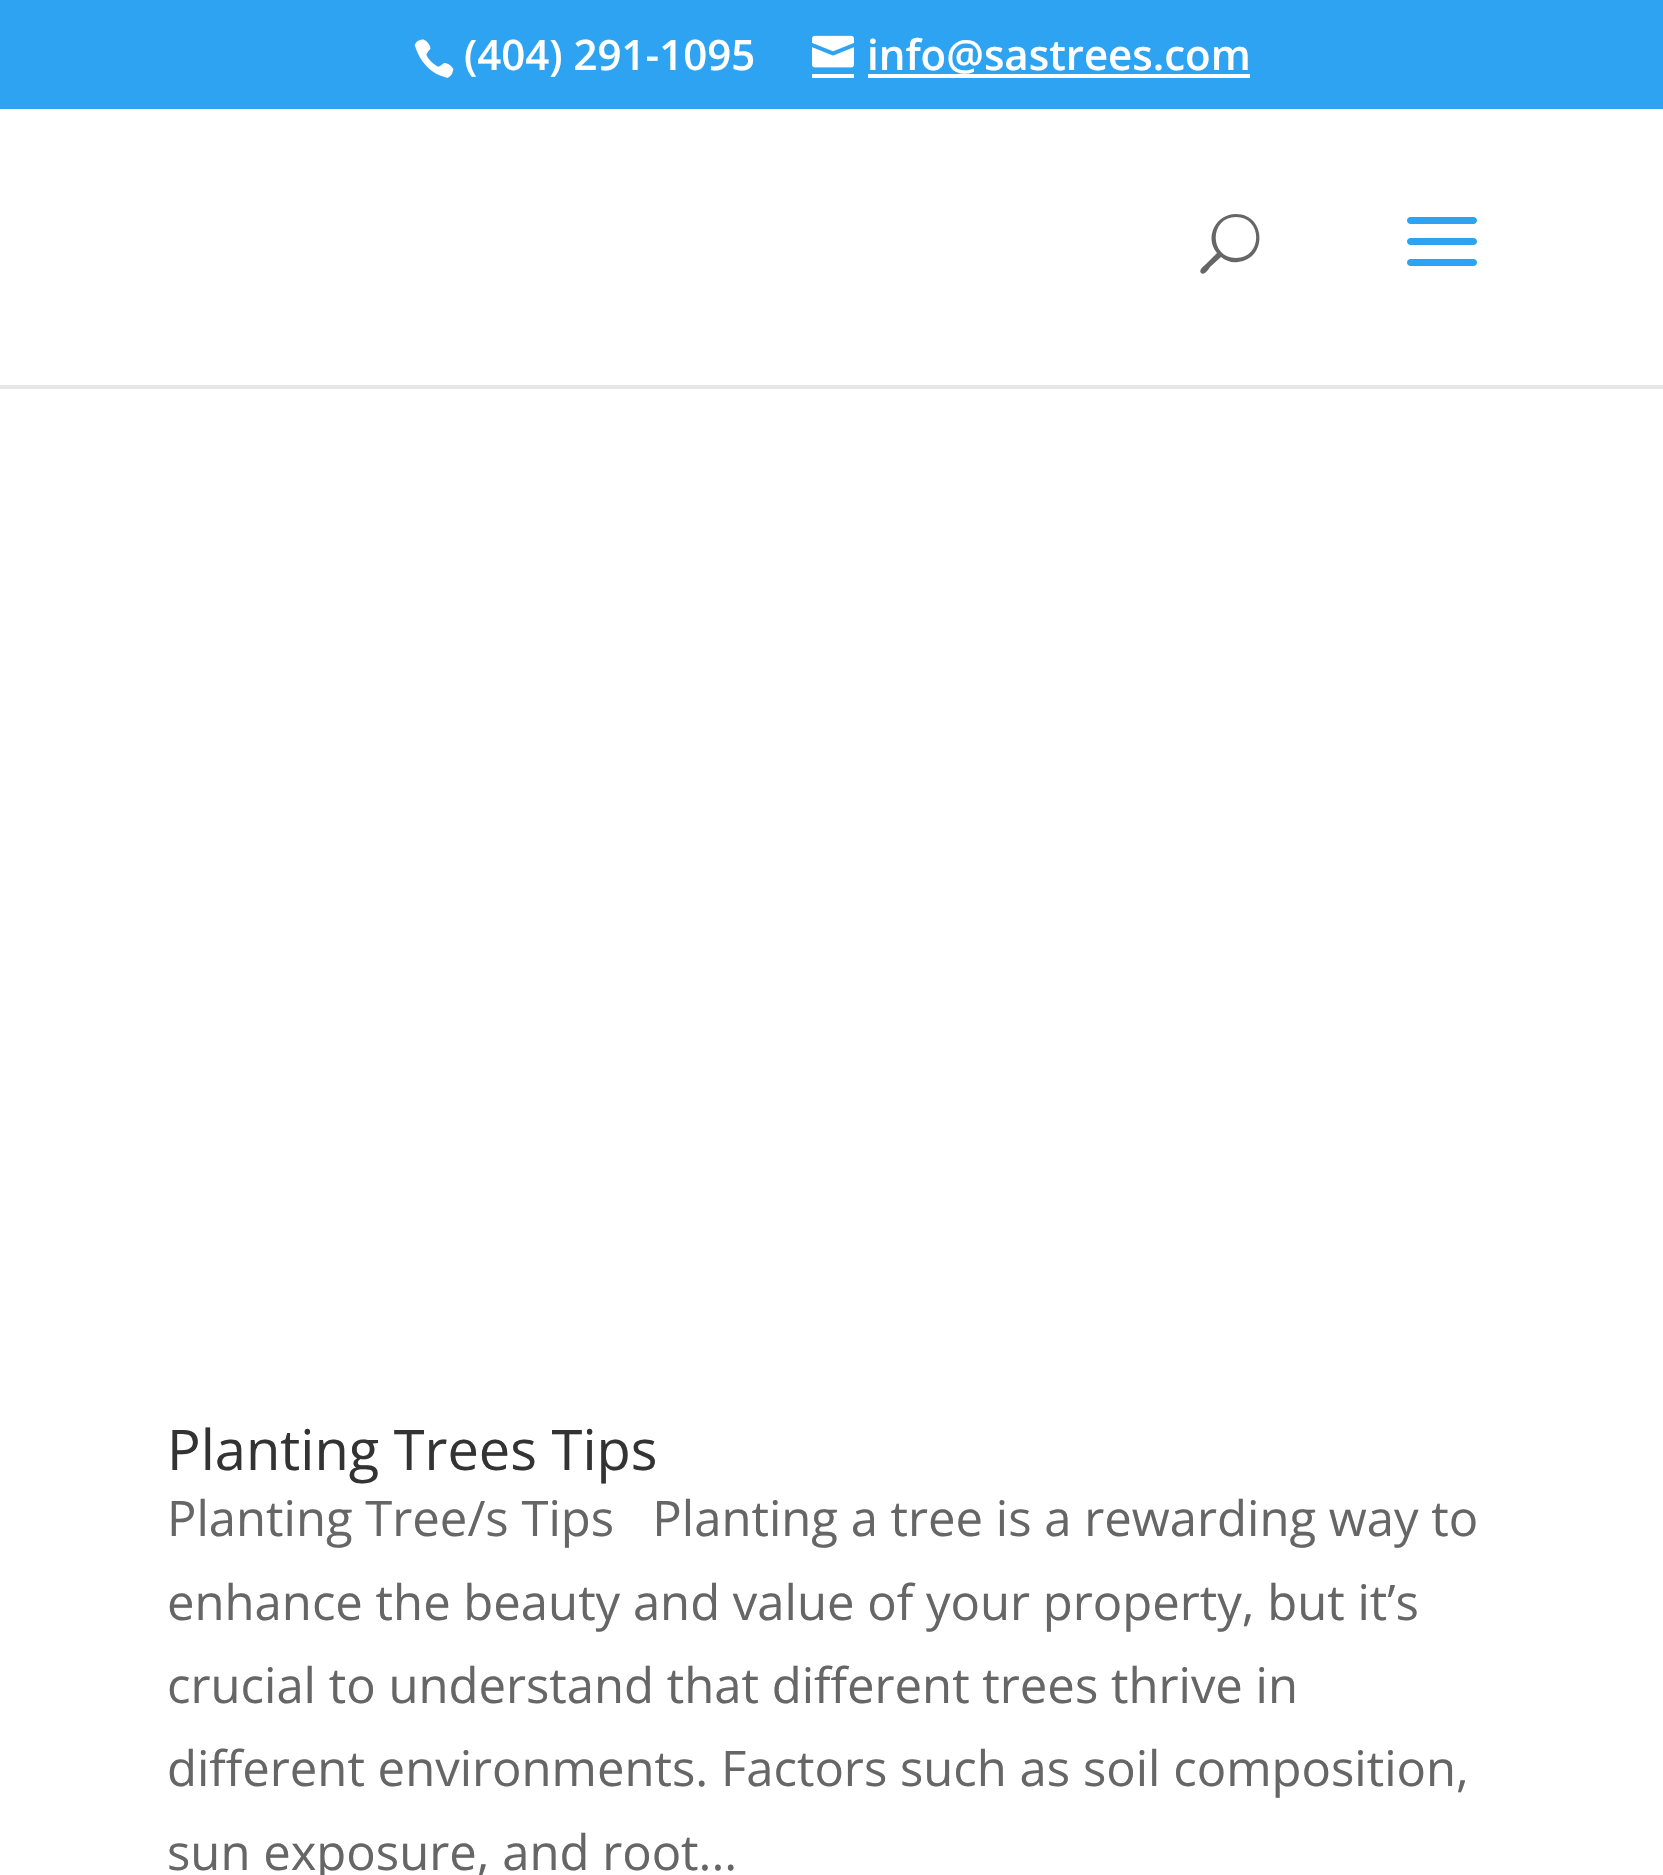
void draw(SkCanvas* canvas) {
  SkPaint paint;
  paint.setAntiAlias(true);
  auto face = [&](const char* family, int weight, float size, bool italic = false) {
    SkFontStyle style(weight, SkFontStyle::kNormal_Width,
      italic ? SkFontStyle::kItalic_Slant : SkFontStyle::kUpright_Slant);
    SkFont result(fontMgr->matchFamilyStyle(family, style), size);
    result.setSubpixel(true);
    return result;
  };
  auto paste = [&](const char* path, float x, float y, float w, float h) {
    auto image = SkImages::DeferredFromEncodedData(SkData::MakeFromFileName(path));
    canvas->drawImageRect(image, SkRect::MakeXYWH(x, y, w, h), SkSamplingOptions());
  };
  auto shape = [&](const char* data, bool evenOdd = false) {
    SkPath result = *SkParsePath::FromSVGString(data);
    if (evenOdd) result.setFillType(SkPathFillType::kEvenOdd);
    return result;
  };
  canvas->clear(0xffffffff);
  paint.setColor(0xff2ea3f2);
  canvas->drawRect(SkRect::MakeXYWH(0, 0, 1663, 109), paint);
  paste("img/1.png", 414, 39, 40, 39);
  paste("img/2.png", 812, 35, 42, 33);
  {
    const struct { float x, y, w, h; SkColor color; } items[] = {
      {812, 74, 42, 4, 0xffffffff},
      {868, 74, 382, 4, 0xffffffff},
      {0, 385, 1663, 4, 0xffe6e6e6},
    };
    for (auto [x, y, w, h, color] : items) {
      paint.setColor(color);
      canvas->drawRect(SkRect::MakeXYWH(x, y, w, h), paint);
    }
  }
  paint.setColor(0xff666666);
  canvas->drawPath(shape("M1236 214C1216 214 1204 237 1217 253L1206 264C1205 265 1198 270 1201 273C1204 276 1209 269 1210 267L1221 257C1226 261 1232 263 1238 262C1268 259 1266 214 1236 214ZM1236 258C1209 258 1209 217 1236 217C1263 217 1263 258 1236 258Z"), paint);
  paste("img/3.png", 1407, 217, 70, 49);
  auto f0 = face("Open Sans", 600, 42);
  paint.setColor(0xffffffff);
  canvas->drawString("(404) 291-1095", 464, 70, f0, paint);
  canvas->drawString("info@sastrees.com", 867, 70, f0, paint);
  auto f1 = face("Open Sans", 400, 56);
  paint.setColor(0xff333333);
  canvas->drawString("Planting Trees Tips", 167, 1470, f1, paint);
  auto f2 = face("Open Sans", 400, 49);
  paint.setColor(0xff666666);
  {
    const struct { const char* s; float x, y; } items[] = {
      {"Planting Tree/s Tips   Planting a tree is a rewarding way to", 167, 1536},
      {"enhance the beauty and value of your property, but it’s", 167, 1620},
      {"crucial to understand that different trees thrive in", 167, 1703},
      {"different environments. Factors such as soil composition,", 167, 1786},
      {"sun exposure, and root...", 167, 1870},
    };
    for (auto [s, x, y] : items) {
      canvas->drawString(s, x, y, f2, paint);
    }
  }
}
